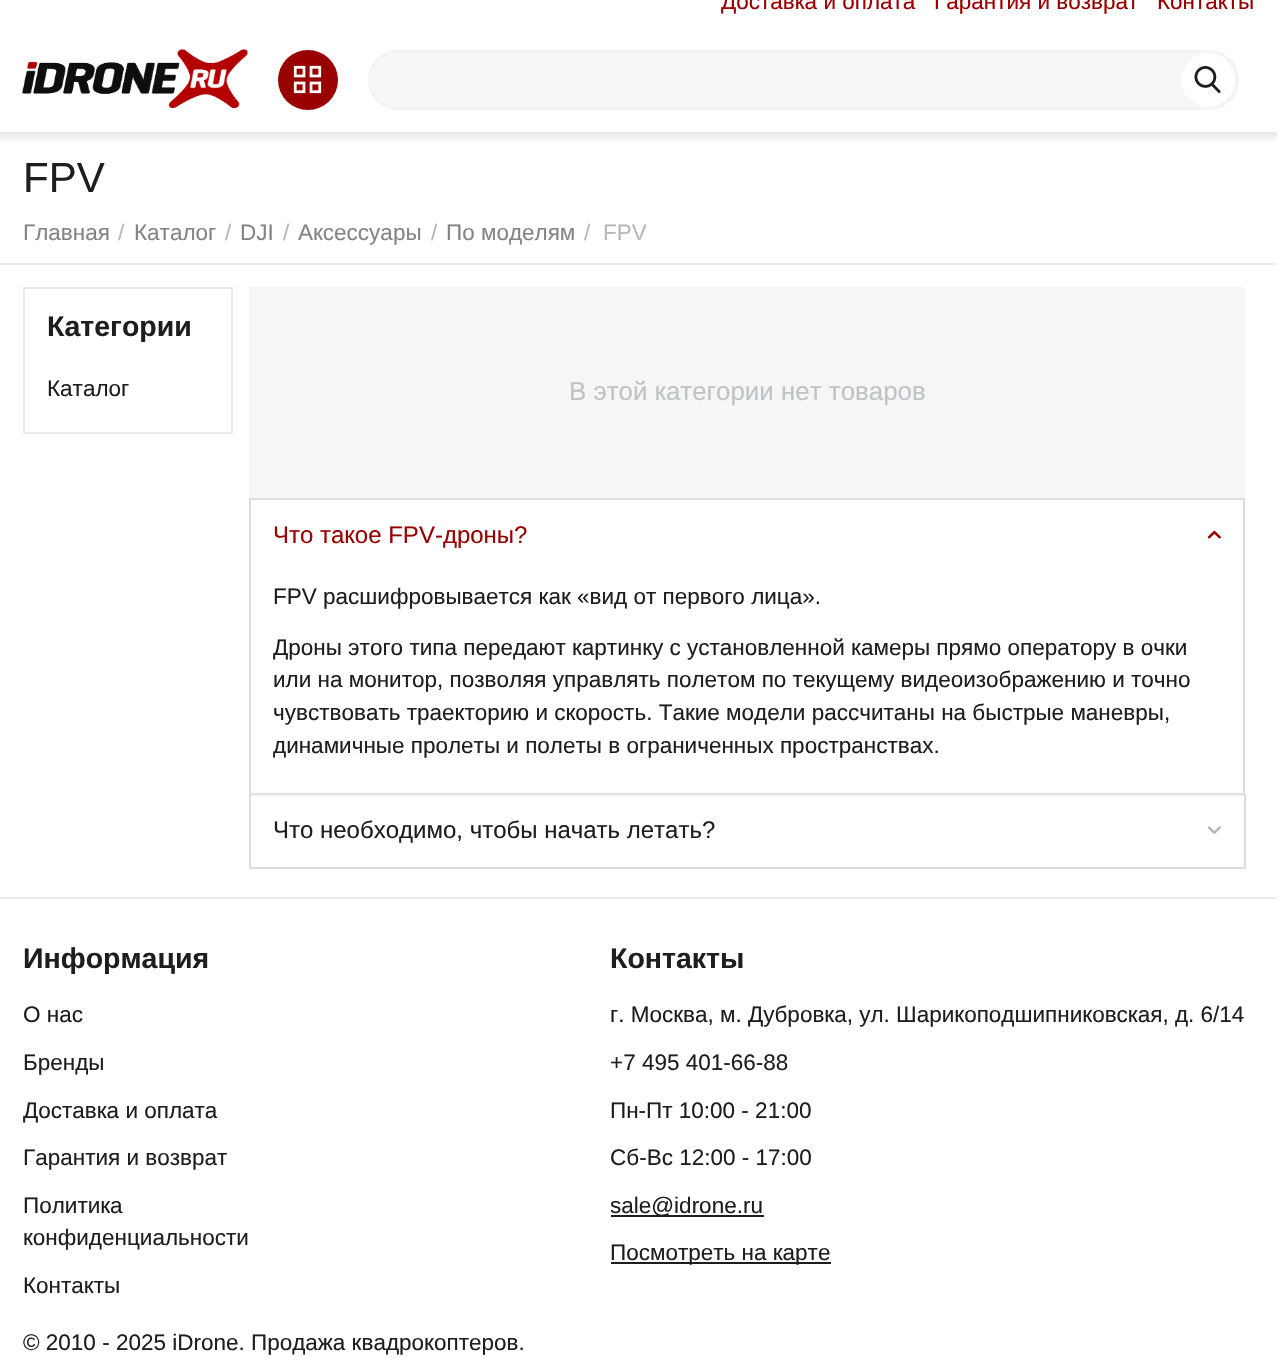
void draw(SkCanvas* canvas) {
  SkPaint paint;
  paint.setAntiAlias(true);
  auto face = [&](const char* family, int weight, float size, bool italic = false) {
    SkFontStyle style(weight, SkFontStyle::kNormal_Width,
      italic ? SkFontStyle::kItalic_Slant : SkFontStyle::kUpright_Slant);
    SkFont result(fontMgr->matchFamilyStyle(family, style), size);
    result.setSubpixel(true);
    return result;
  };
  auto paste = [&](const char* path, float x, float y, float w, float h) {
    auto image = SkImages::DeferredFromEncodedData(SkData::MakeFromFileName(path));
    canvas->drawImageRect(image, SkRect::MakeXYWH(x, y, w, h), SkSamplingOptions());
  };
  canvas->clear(0xffffffff);
  paste("img/1.png", 22, 49, 226, 59);
  paint.setColor(0xff990000);
  canvas->drawCircle(308, 80, 30, paint);
  paste("img/2.png", 293, 65, 29, 29);
  paint.setColor(0xfff6f6f6);
  canvas->drawRoundRect(SkRect::MakeXYWH(369, 51, 869, 58), 29, 29, paint);
  paint.setStroke(true);
  paint.setStrokeWidth(2);
  paint.setColor(0xfff3f3f3);
  canvas->drawRoundRect(SkRect::MakeXYWH(369, 51, 869, 58), 29, 29, paint);
  paint.setStroke(false);
  paint.setColor(0xffffffff);
  canvas->drawCircle(1208, 80, 27, paint);
  paste("img/3.png", 1194, 66, 27, 27);
  {
    const SkColor colors[] = {0xffe6e6e6, 0xffffffff};
    const float stops[] = {0, 1};
    const SkPoint ends[] = {{638, 132}, {638, 143}};
    paint.setShader(SkGradientShader::MakeLinear(ends, colors, stops, 2, SkTileMode::kClamp));
    paint.setAlpha(255);
  }
  canvas->drawRect(SkRect::MakeXYWH(0, 132, 1277, 10), paint);
  paint.setShader(nullptr);
  paint.setColor(0xffeaeaea);
  canvas->drawRect(SkRect::MakeXYWH(0, 263, 1277, 2), paint);
  paint.setStroke(true);
  canvas->drawRect(SkRect::MakeXYWH(24, 288, 208, 145), paint);
  paint.setStroke(false);
  paint.setColor(0xfff6f6f6);
  canvas->drawRect(SkRect::MakeXYWH(249, 287, 996, 211), paint);
  paint.setStroke(true);
  paint.setColor(0xffdddddd);
  canvas->drawRect(SkRect::MakeXYWH(250, 499, 994, 295), paint);
  paste("img/4.png", 1207, 530, 14, 9);
  paint.setStroke(false);
  {
    const struct { float x, y, w, h; SkColor color; } items[] = {
      {249, 794, 996, 2, 0xffeaeaea},
      {1244, 794, 2, 75, 0xffdddddd},
      {249, 867, 996, 2, 0xffdddddd},
      {249, 794, 2, 75, 0xffdddddd},
    };
    for (auto [x, y, w, h, color] : items) {
      paint.setColor(color);
      canvas->drawRect(SkRect::MakeXYWH(x, y, w, h), paint);
    }
  }
  paste("img/5.png", 1207, 826, 14, 8);
  {
    const struct { float x, y, w, h; SkColor color; } items[] = {
      {0, 897, 1277, 2, 0xffeaeaea},
      {611, 1215, 153, 2, 0xff1e1e1e},
      {611, 1262, 220, 2, 0xff1e1e1e},
    };
    for (auto [x, y, w, h, color] : items) {
      paint.setColor(color);
      canvas->drawRect(SkRect::MakeXYWH(x, y, w, h), paint);
    }
  }
  auto f0 = face("Liberation Sans", 400, 22.5f);
  paint.setColor(0xff990000);
  {
    const struct { const char* s; float x, y; } items[] = {
      {"Доставка и оплата", 721, 9},
      {"Гарантия и возврат", 934, 9},
      {"Контакты", 1157, 9},
    };
    for (auto [s, x, y] : items) {
      canvas->drawString(s, x, y, f0, paint);
    }
  }
  auto f1 = face("Liberation Sans", 400, 42);
  paint.setColor(0xff1e1e1e);
  canvas->drawString("FPV", 23, 192, f1, paint);
  paint.setColor(0xff848484);
  canvas->drawString("Главная", 23, 240, f0, paint);
  paint.setColor(0xffb7b7b7);
  canvas->drawString("/", 118, 240, f0, paint);
  paint.setColor(0xff848484);
  canvas->drawString("Каталог", 134, 240, f0, paint);
  paint.setColor(0xffb7b7b7);
  canvas->drawString("/", 225, 240, f0, paint);
  paint.setColor(0xff848484);
  canvas->drawString("DJI", 240, 240, f0, paint);
  paint.setColor(0xffb7b7b7);
  canvas->drawString("/", 283, 240, f0, paint);
  paint.setColor(0xff848484);
  canvas->drawString("Аксессуары", 298, 240, f0, paint);
  paint.setColor(0xffb7b7b7);
  canvas->drawString("/", 431, 240, f0, paint);
  paint.setColor(0xff848484);
  canvas->drawString("По моделям", 446, 240, f0, paint);
  paint.setColor(0xffb7b7b7);
  canvas->drawString("/", 584, 240, f0, paint);
  canvas->drawString("FPV", 603, 240, f0, paint);
  auto f2 = face("Liberation Sans", 700, 28.5f);
  paint.setColor(0xff1e1e1e);
  canvas->drawString("Категории", 47, 336, f2, paint);
  canvas->drawString("Каталог", 47, 396, f0, paint);
  auto f3 = face("Liberation Sans", 400, 25.9f);
  paint.setColor(0xffbdc3c7);
  canvas->drawString("В этой категории нет товаров", 569, 400, f3, paint);
  auto f4 = face("Liberation Sans", 400, 24);
  paint.setColor(0xff990000);
  canvas->drawString("Что такое FPV-дроны?", 273, 543, f4, paint);
  paint.setColor(0xff1e1e1e);
  {
    const struct { const char* s; float x, y; } items[] = {
      {"FPV расшифровывается как «вид от первого лица».", 273, 604},
      {"Дроны этого типа передают картинку с установленной камеры прямо оператору в очки", 273, 655},
      {"или на монитор, позволяя управлять полетом по текущему видеоизображению и точно", 273, 687},
      {"чувствовать траекторию и скорость. Такие модели рассчитаны на быстрые маневры,", 273, 720},
      {"динамичные пролеты и полеты в ограниченных пространствах.", 273, 753},
    };
    for (auto [s, x, y] : items) {
      canvas->drawString(s, x, y, f0, paint);
    }
  }
  canvas->drawString("Что необходимо, чтобы начать летать?", 273, 838, f4, paint);
  canvas->drawString("Информация", 23, 968, f2, paint);
  {
    const struct { const char* s; float x, y; } items[] = {
      {"О нас", 23, 1022},
      {"Бренды", 23, 1070},
      {"Доставка и оплата", 23, 1118},
      {"Гарантия и возврат", 23, 1165},
      {"Политика", 23, 1213},
      {"конфиденциальности", 23, 1245},
      {"Контакты", 23, 1293},
    };
    for (auto [s, x, y] : items) {
      canvas->drawString(s, x, y, f0, paint);
    }
  }
  canvas->drawString("Контакты", 610, 968, f2, paint);
  {
    const struct { const char* s; float x, y; } items[] = {
      {"г. Москва, м. Дубровка, ул. Шарикоподшипниковская, д. 6/14", 610, 1022},
      {"+7 495 401-66-88", 610, 1070},
      {"Пн-Пт 10:00 - 21:00", 610, 1118},
      {"Сб-Вс 12:00 - 17:00", 610, 1165},
      {"sale@idrone.ru", 610, 1213},
      {"Посмотреть на карте", 610, 1260},
      {"© 2010 - 2025 iDrone. Продажа квадрокоптеров.", 23, 1350},
    };
    for (auto [s, x, y] : items) {
      canvas->drawString(s, x, y, f0, paint);
    }
  }
}
